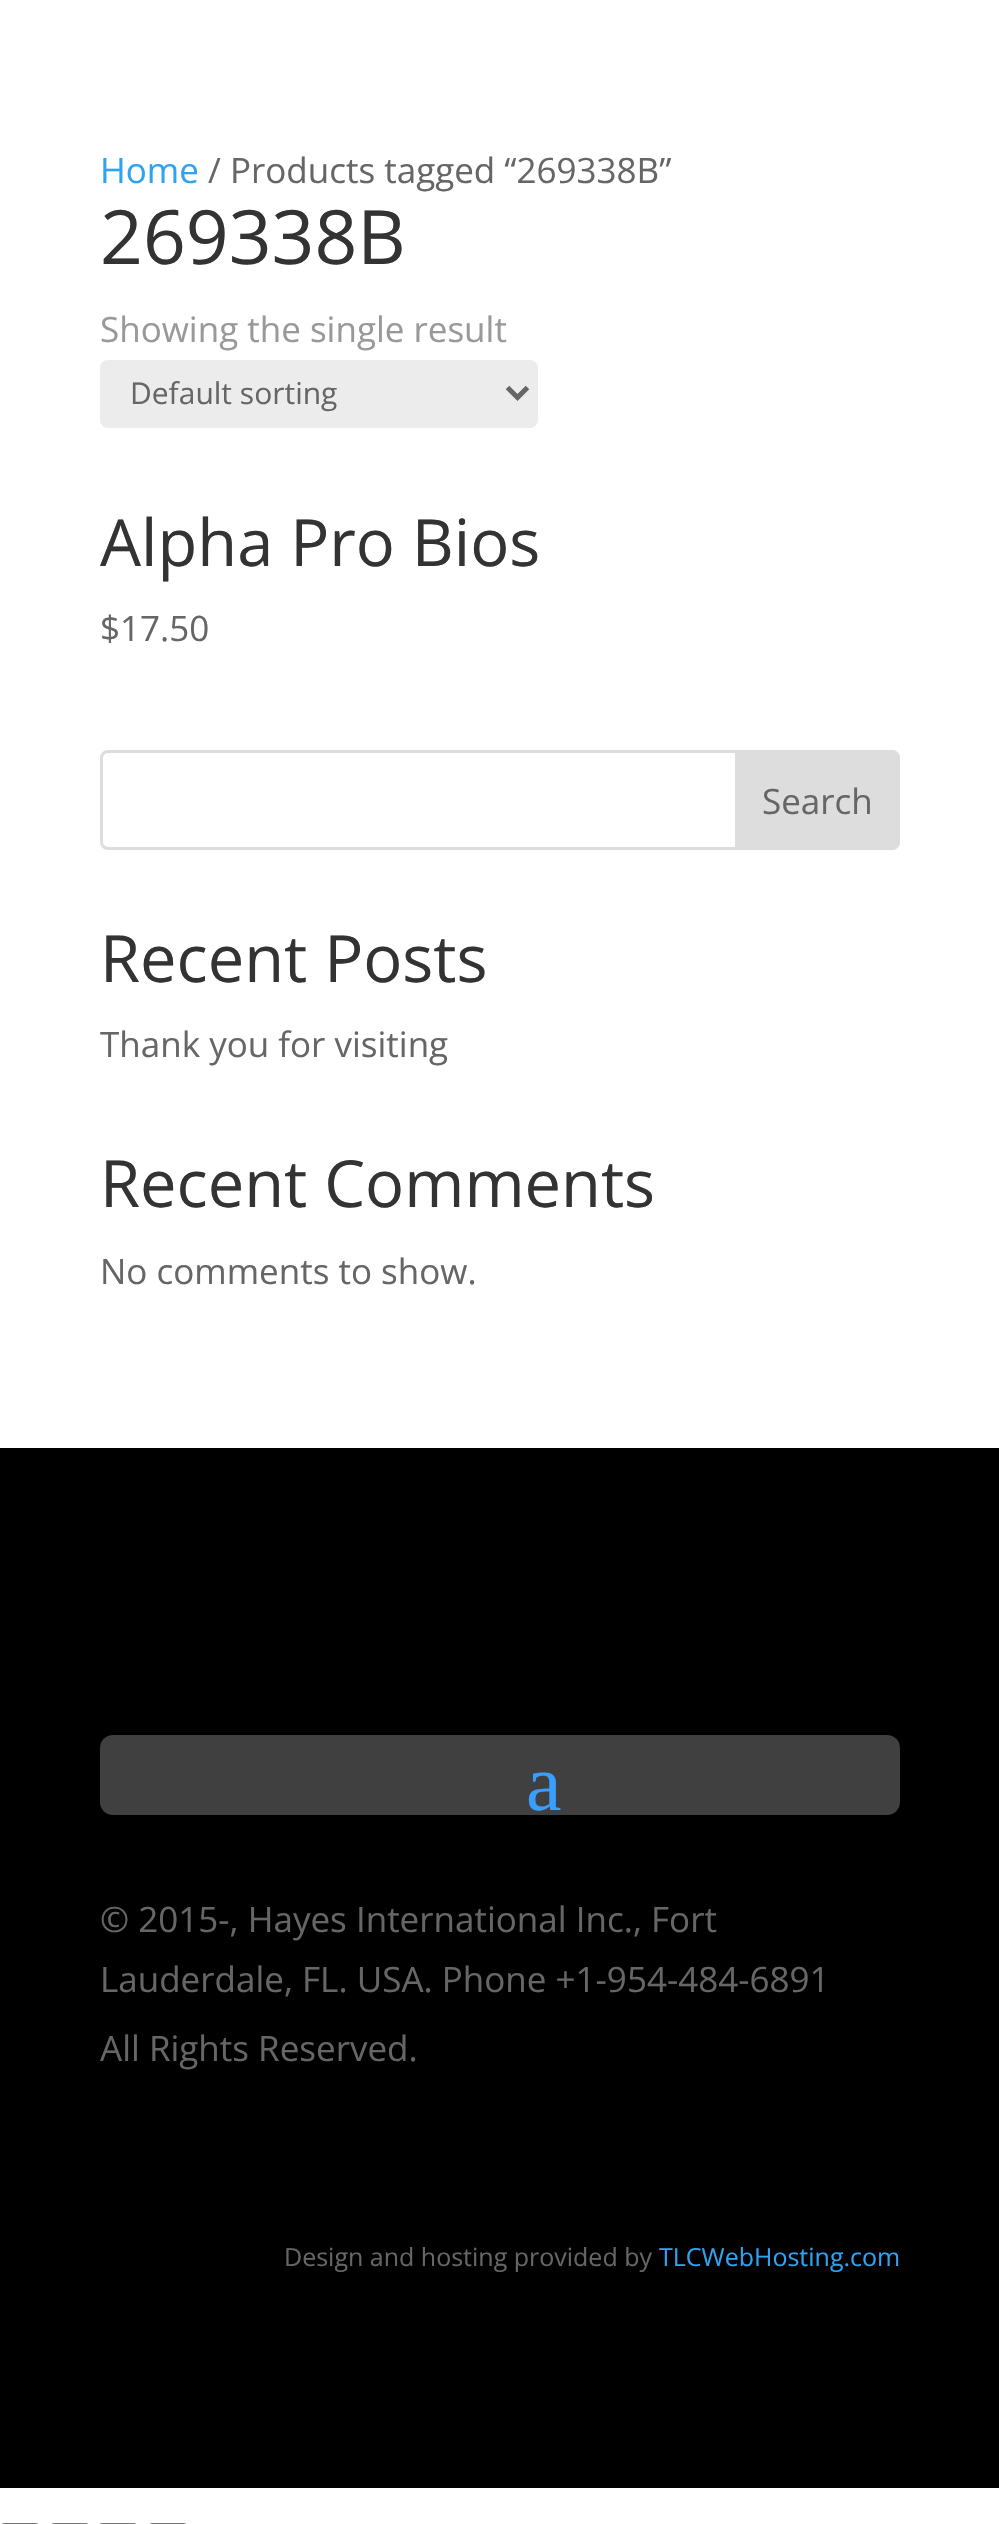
void draw(SkCanvas* canvas) {
  SkPaint paint;
  paint.setAntiAlias(true);
  auto face = [&](const char* family, int weight, float size, bool italic = false) {
    SkFontStyle style(weight, SkFontStyle::kNormal_Width,
      italic ? SkFontStyle::kItalic_Slant : SkFontStyle::kUpright_Slant);
    SkFont result(fontMgr->matchFamilyStyle(family, style), size);
    result.setSubpixel(true);
    return result;
  };
  auto shape = [&](const char* data, bool evenOdd = false) {
    SkPath result = *SkParsePath::FromSVGString(data);
    if (evenOdd) result.setFillType(SkPathFillType::kEvenOdd);
    return result;
  };
  canvas->clear(0xffffffff);
  paint.setColor(0xffececec);
  canvas->drawRoundRect(SkRect::MakeXYWH(100, 360, 438, 68), 8, 8, paint);
  paint.setStroke(true);
  paint.setStrokeWidth(5);
  paint.setColor(0xff666666);
  canvas->drawPath(shape("M507.5 387.5L517.5 397.5L527.5 387.5"), paint);
  paint.setStrokeWidth(3);
  paint.setColor(0xffdddddd);
  canvas->drawRoundRect(SkRect::MakeXYWH(101.5f, 751.5f, 797, 97), 6.5f, 6.5f, paint);
  paint.setStroke(false);
  canvas->drawPath(shape("M736.5 751.5H892C895.5 751.5 898.5 754.5 898.5 758V842C898.5 845.5 895.5 848.5 892 848.5H736.5Z"), paint);
  paint.setStroke(true);
  canvas->drawPath(shape("M736.5 751.5H892C895.5 751.5 898.5 754.5 898.5 758V842C898.5 845.5 895.5 848.5 892 848.5H736.5Z"), paint);
  paint.setStroke(false);
  paint.setColor(0xff000000);
  canvas->drawRect(SkRect::MakeXYWH(0, 1448, 999, 1040), paint);
  paint.setColor(0xff404040);
  canvas->drawRoundRect(SkRect::MakeXYWH(100, 1735, 800, 80), 13, 13, paint);
  paint.setStroke(true);
  paint.setColor(0xff767676);
  canvas->drawRoundRect(SkRect::MakeXYWH(1.5f, 2524.5f, 37, 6), 3.5f, 3.5f, paint);
  canvas->drawRoundRect(SkRect::MakeXYWH(51.5f, 2524.5f, 37, 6), 3.5f, 3.5f, paint);
  canvas->drawRoundRect(SkRect::MakeXYWH(99.5f, 2524.5f, 37, 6), 3.5f, 3.5f, paint);
  canvas->drawRoundRect(SkRect::MakeXYWH(149.5f, 2524.5f, 37, 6), 3.5f, 3.5f, paint);
  auto f0 = face("Open Sans", 400, 35);
  paint.setStroke(false);
  paint.setColor(0xff2ea3f2);
  canvas->drawString("Home", 100, 183, f0, paint);
  paint.setColor(0xff666666);
  canvas->drawString("/ Products tagged “269338B”", 208, 183, f0, paint);
  auto f1 = face("Open Sans", 400, 75);
  paint.setColor(0xff333333);
  canvas->drawString("269338B", 100, 264, f1, paint);
  paint.setColor(0xff999999);
  canvas->drawString("Showing the single result", 100, 342, f0, paint);
  auto f2 = face("Open Sans", 400, 30);
  paint.setColor(0xff666666);
  canvas->drawString("Default sorting", 130, 404, f2, paint);
  auto f3 = face("Open Sans", 400, 65);
  paint.setColor(0xff333333);
  canvas->drawString("Alpha Pro Bios", 100, 566, f3, paint);
  paint.setColor(0xff666666);
  canvas->drawString("$17.50", 100, 641, f0, paint);
  canvas->drawString("Search", 762, 814, f0, paint);
  paint.setColor(0xff333333);
  canvas->drawString("Recent Posts", 100, 982, f3, paint);
  paint.setColor(0xff666666);
  canvas->drawString("Thank you for visiting", 100, 1057, f0, paint);
  paint.setColor(0xff333333);
  canvas->drawString("Recent Comments", 100, 1207, f3, paint);
  paint.setColor(0xff666666);
  canvas->drawString("No comments to show.", 100, 1284, f0, paint);
  auto f4 = face("Liberation Serif", 400, 80);
  paint.setColor(0xff389fff);
  canvas->drawString("a", 526, 1810, f4, paint);
  paint.setColor(0xff666666);
  {
    const struct { const char* s; float x, y; } items[] = {
      {"© 2015-, Hayes International Inc., Fort", 100, 1932},
      {"Lauderdale, FL. USA. Phone +1-954-484-6891", 100, 1992},
      {"All Rights Reserved.", 100, 2061},
    };
    for (auto [s, x, y] : items) {
      canvas->drawString(s, x, y, f0, paint);
    }
  }
  auto f5 = face("Open Sans", 400, 25);
  canvas->drawString("Design and hosting provided by", 284, 2266, f5, paint);
  paint.setColor(0xff2ea3f2);
  canvas->drawString("TLCWebHosting.com", 659, 2266, f5, paint);
}
